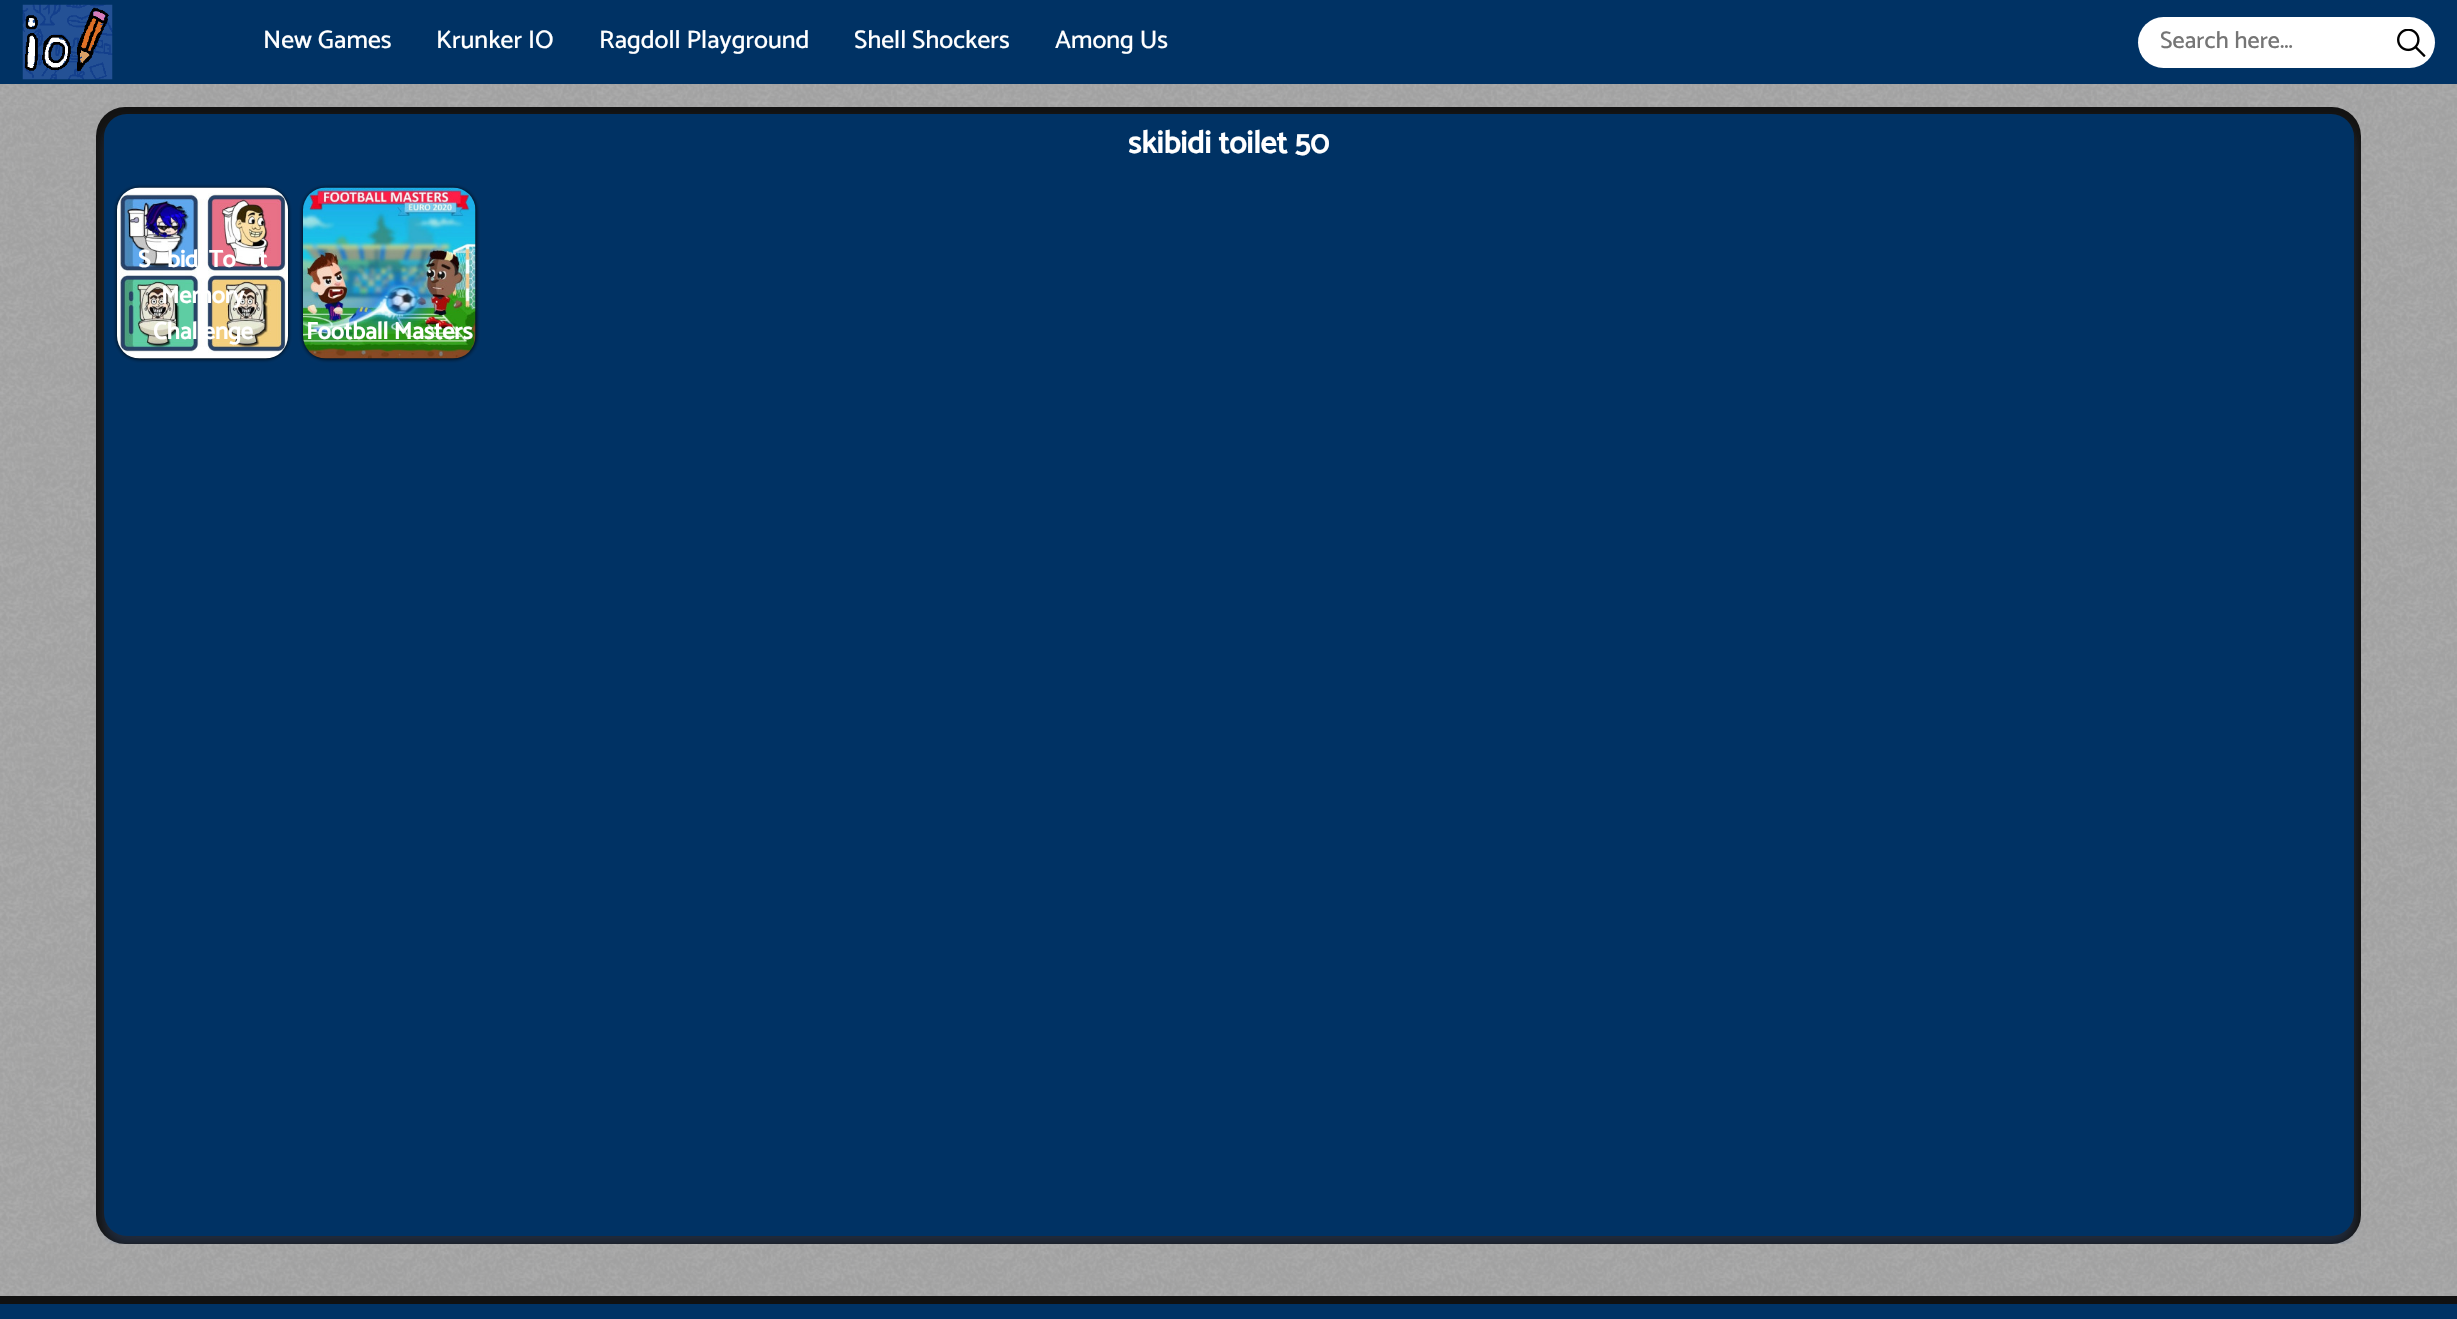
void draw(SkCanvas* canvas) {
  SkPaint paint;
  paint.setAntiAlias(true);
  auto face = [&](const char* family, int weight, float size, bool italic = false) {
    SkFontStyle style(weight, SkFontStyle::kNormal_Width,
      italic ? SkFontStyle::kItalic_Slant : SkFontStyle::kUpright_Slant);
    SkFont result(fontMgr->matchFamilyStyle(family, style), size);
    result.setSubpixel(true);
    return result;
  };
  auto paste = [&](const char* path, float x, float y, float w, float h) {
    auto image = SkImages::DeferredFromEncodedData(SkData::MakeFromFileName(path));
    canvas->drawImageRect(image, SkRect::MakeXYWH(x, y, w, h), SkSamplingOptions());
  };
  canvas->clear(0xff808080);
  paste("img/1.png", 0, 84, 2457, 1212);
  paint.setColor(0xff003264);
  canvas->drawRect(SkRect::MakeXYWH(0, 0, 2457, 84), paint);
  paste("img/2.png", 22, 4, 91, 76);
  paint.setColor(0xffffffff);
  canvas->drawRoundRect(SkRect::MakeXYWH(2138, 17, 297, 51), 25.5f, 25.5f, paint);
  paste("img/3.png", 2397, 29, 29, 28);
  paint.setColor(0xff111111);
  canvas->drawRoundRect(SkRect::MakeXYWH(96, 107, 2265, 1137), 29, 29, paint);
  canvas->save();
  canvas->clipRect(SkRect::MakeXYWH(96, 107, 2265, 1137));
  paint.setColor(0x0fffffff);
  paint.setMaskFilter(SkMaskFilter::MakeBlur(kNormal_SkBlurStyle, 7));
  canvas->drawRoundRect(SkRect::MakeXYWH(104, 123, 2250, 1122), 23, 23, paint);
  paint.setMaskFilter(nullptr);
  paint.setColor(0x42224b8c);
  paint.setMaskFilter(SkMaskFilter::MakeBlur(kNormal_SkBlurStyle, 5));
  canvas->drawRoundRect(SkRect::MakeXYWH(104, 123, 2250, 1122), 23, 23, paint);
  paint.setMaskFilter(nullptr);
  canvas->restore();
  paint.setColor(0xff003264);
  canvas->drawRoundRect(SkRect::MakeXYWH(104, 114, 2250, 1122), 23, 23, paint);
  paint.setColor(0xff020202);
  paint.setMaskFilter(SkMaskFilter::MakeBlur(kNormal_SkBlurStyle, 2));
  canvas->drawRoundRect(SkRect::MakeXYWH(117, 188, 171, 171), 23, 23, paint);
  paint.setMaskFilter(nullptr);
  paste("img/4.png", 117, 187, 171, 172);
  paint.setMaskFilter(SkMaskFilter::MakeBlur(kNormal_SkBlurStyle, 2));
  canvas->drawRoundRect(SkRect::MakeXYWH(303, 188, 173, 171), 23, 23, paint);
  paint.setMaskFilter(nullptr);
  paste("img/5.png", 303, 187, 173, 172);
  paint.setColor(0xff003264);
  canvas->drawRect(SkRect::MakeXYWH(0, 1304, 2457, 15), paint);
  paint.setColor(0xff111111);
  canvas->drawRect(SkRect::MakeXYWH(0, 1296, 2457, 8), paint);
  auto f0 = face("Catamaran", 100, 25.5f);
  paint.setColor(0xffffffff);
  {
    const struct { const char* s; float x, y; } items[] = {
      {"New Games", 263, 48},
      {"Krunker IO", 436, 48},
      {"Ragdoll Playground", 599, 48},
      {"Shell Shockers", 854, 48},
      {"Among Us", 1055, 48},
    };
    for (auto [s, x, y] : items) {
      canvas->drawString(s, x, y, f0, paint);
    }
  }
  auto f1 = face("Catamaran", 100, 24);
  paint.setColor(0xff757575);
  canvas->drawString("Search here...", 2160, 48, f1, paint);
  auto f2 = face("Catamaran", 700, 31.5f);
  paint.setColor(0xffffffff);
  canvas->drawString("skibidi toilet 50", 1128, 153, f2, paint);
  auto f3 = face("Catamaran", 700, 24);
  {
    const struct { const char* s; float x, y; } items[] = {
      {"S", 138, 267},
      {"bidi To", 167, 267},
      {"t", 259, 267},
      {"Memory", 161, 303},
      {"Challenge", 153, 339},
      {"Football Masters", 306, 339},
    };
    for (auto [s, x, y] : items) {
      canvas->drawString(s, x, y, f3, paint);
    }
  }
}
